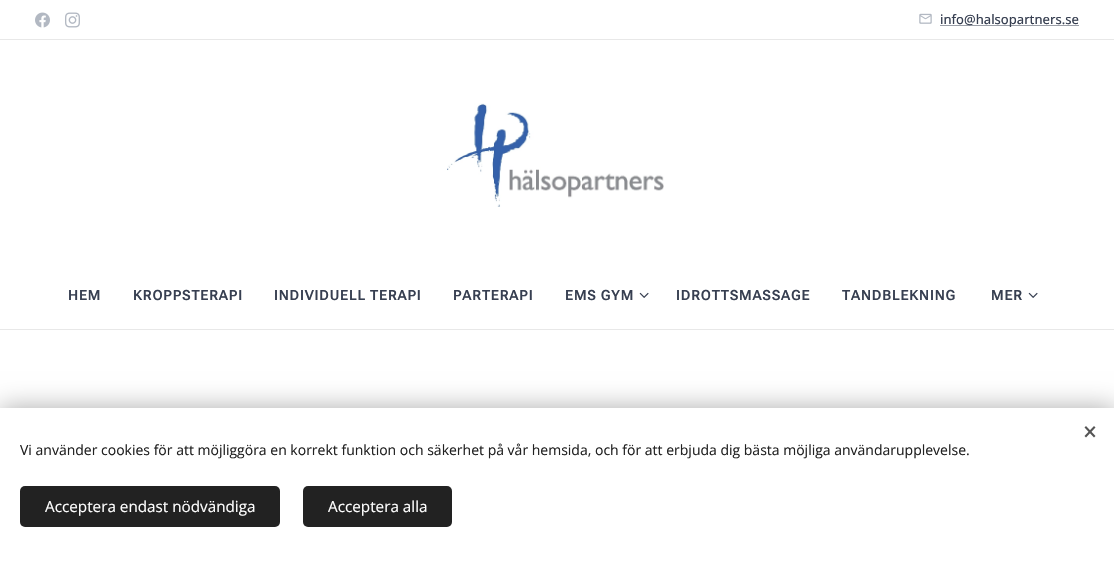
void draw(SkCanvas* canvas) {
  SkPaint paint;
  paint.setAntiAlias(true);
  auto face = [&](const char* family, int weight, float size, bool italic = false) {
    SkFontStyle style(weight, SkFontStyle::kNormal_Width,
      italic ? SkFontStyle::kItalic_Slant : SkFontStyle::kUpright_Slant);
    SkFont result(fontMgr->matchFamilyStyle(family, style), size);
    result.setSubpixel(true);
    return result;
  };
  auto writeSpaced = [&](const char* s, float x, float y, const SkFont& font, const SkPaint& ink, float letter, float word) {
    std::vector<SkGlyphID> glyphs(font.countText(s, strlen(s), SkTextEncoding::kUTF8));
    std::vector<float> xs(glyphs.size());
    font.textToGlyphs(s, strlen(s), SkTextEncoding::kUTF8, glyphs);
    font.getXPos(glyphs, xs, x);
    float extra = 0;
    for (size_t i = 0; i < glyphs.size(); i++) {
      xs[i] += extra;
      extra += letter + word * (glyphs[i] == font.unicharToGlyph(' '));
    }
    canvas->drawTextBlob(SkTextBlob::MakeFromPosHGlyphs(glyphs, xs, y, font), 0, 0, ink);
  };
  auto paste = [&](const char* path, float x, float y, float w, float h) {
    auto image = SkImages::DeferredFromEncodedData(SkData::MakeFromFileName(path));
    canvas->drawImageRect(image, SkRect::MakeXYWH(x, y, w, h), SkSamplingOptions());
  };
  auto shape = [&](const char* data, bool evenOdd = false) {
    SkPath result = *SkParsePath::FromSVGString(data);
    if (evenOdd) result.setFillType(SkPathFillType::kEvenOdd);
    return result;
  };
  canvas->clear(0xffffffff);
  paste("img/1.png", 35, 12, 15, 16);
  paste("img/2.png", 65, 12, 15, 16);
  paste("img/3.png", 919, 13, 13, 11);
  paint.setColor(0xff9b9fa8);
  canvas->drawRect(SkRect::MakeXYWH(940, 25, 139, 1), paint);
  paint.setColor(0xffe8e8e8);
  canvas->drawRect(SkRect::MakeXYWH(0, 39, 1114, 1), paint);
  paste("img/4.png", 447, 103, 217, 104);
  paste("img/5.png", 639, 292, 10, 6);
  paste("img/5.png", 1028, 292, 10, 6);
  canvas->drawRect(SkRect::MakeXYWH(0, 329, 1114, 1), paint);
  paint.setColor(0x54000000);
  paint.setMaskFilter(SkMaskFilter::MakeBlur(kNormal_SkBlurStyle, 12.5f));
  canvas->drawRect(SkRect::MakeXYWH(0, 408, 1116, 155), paint);
  paint.setMaskFilter(nullptr);
  paint.setColor(0xffffffff);
  canvas->drawRect(SkRect::MakeXYWH(0, 408, 1114, 153), paint);
  paint.setColor(0xff555555);
  canvas->drawPath(shape("M1084.5 436L1094 426L1095.5 427.5L1086 437.5Z"), paint);
  canvas->drawPath(shape("M1086 426L1095.5 436L1094 437.5L1084.5 427.5Z"), paint);
  paint.setColor(0xff222222);
  canvas->drawRoundRect(SkRect::MakeXYWH(20, 486, 260, 41), 5, 5, paint);
  canvas->drawRoundRect(SkRect::MakeXYWH(303, 486, 149, 41), 5, 5, paint);
  auto f0 = face("Open Sans", 500, 13);
  paint.setColor(0xff373f51);
  canvas->drawString("info@halsopartners.se", 940, 24, f0, paint);
  auto f1 = face("Roboto Flex", 600, 14);
  {
    const struct { const char* s; float x, y; } items[] = {
      {"HEM", 68, 300},
      {"KROPPSTERAPI", 133, 300},
      {"INDIVIDUELL TERAPI", 274, 300},
      {"PARTERAPI", 453, 300},
      {"EMS GYM", 565, 300},
      {"IDROTTSMASSAGE", 676, 300},
      {"TANDBLEKNING", 842, 300},
      {"MER", 991, 300},
    };
    for (auto [s, x, y] : items) {
      writeSpaced(s, x, y, f1, paint, 0.75f, 0);
    }
  }
  auto f2 = face("Open Sans", 400, 14);
  paint.setColor(0xff222222);
  canvas->drawString("Vi använder cookies för att möjliggöra en korrekt funktion och säkerhet på vår hemsida, och för att erbjuda dig bästa möjliga användarupplevelse.", 20, 455, f2, paint);
  auto f3 = face("Open Sans", 400, 15.25f);
  paint.setColor(0xffffffff);
  canvas->drawString("Acceptera endast nödvändiga", 45, 512, f3, paint);
  canvas->drawString("Acceptera alla", 328, 512, f3, paint);
}
